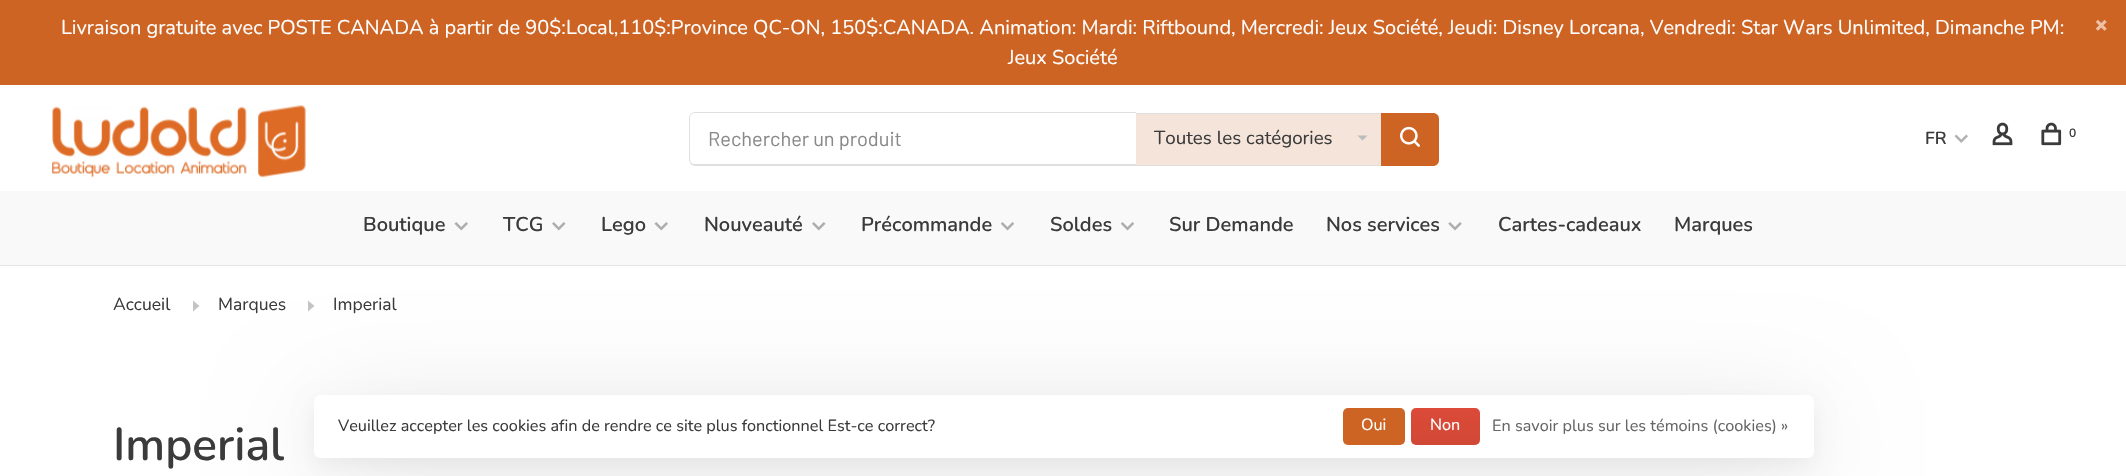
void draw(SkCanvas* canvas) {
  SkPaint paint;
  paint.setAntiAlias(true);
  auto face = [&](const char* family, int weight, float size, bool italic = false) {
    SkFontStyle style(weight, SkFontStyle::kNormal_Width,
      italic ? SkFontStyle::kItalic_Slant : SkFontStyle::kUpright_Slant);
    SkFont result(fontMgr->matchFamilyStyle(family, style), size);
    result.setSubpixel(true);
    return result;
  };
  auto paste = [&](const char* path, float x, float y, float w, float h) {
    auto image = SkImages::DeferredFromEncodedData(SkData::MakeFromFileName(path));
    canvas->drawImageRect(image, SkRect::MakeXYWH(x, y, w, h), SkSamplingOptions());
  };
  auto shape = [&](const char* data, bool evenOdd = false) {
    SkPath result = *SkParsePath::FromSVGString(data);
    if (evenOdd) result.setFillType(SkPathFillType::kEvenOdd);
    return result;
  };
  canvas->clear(0xffffffff);
  paint.setColor(0xffce6423);
  canvas->drawRect(SkRect::MakeXYWH(0, 0, 2126, 85), paint);
  paste("img/1.png", 2095, 19, 12, 12);
  paste("img/2.png", 52, 105, 254, 73);
  paint.setColor(0xffdfdfdf);
  canvas->drawPath(shape("M695 112H1136V166H695C692 166 689 163 689 159V118C689 115 692 112 695 112ZM695 113H1136V164H695C692 164 690 162 690 159V118C690 115 692 113 695 113Z", true), paint);
  {
    const struct { float x, y, w, h; SkColor color; } items[] = {
      {1136, 114, 245, 51, 0xfff4e4d9},
      {1136, 113, 245, 1, 0xffdfdfdf},
      {1136, 165, 245, 1, 0xffdfdfdf},
    };
    for (auto [x, y, w, h, color] : items) {
      paint.setColor(color);
      canvas->drawRect(SkRect::MakeXYWH(x, y, w, h), paint);
    }
  }
  paint.setColor(0xffbbbbbb);
  canvas->drawPath(shape("M1357.5 135.5H1367.5L1362.5 140.5Z"), paint);
  paint.setColor(0xffce6423);
  canvas->drawPath(shape("M1381 113H1433C1436.5 113 1439 115.5 1439 119V160C1439 163.5 1436.5 166 1433 166H1381Z"), paint);
  paste("img/3.png", 1400, 126, 20, 21);
  paste("img/4.png", 1954, 134, 14, 9);
  paste("img/5.png", 1992, 122, 21, 24);
  paste("img/6.png", 2041, 122, 21, 24);
  paint.setColor(0xfff9f9f9);
  canvas->drawRect(SkRect::MakeXYWH(0, 191, 2126, 74), paint);
  paint.setColor(0xffe5e5e5);
  canvas->drawRect(SkRect::MakeXYWH(0, 265, 2126, 1), paint);
  paste("img/7.png", 454, 222, 14, 9);
  paste("img/8.png", 552, 222, 14, 9);
  paste("img/7.png", 654, 222, 14, 9);
  paste("img/8.png", 812, 222, 14, 9);
  paste("img/9.png", 1000, 222, 15, 9);
  paste("img/9.png", 1120, 222, 15, 9);
  paste("img/10.png", 1448, 222, 14, 9);
  paint.setColor(0xffc4c4c4);
  canvas->drawPath(shape("M193 311.5L199.5 306L193 300.5Z"), paint);
  canvas->drawPath(shape("M308 311.5L314.5 306L308 300.5Z"), paint);
  paint.setColor(0x0d000000);
  paint.setMaskFilter(SkMaskFilter::MakeBlur(kNormal_SkBlurStyle, 9.5f));
  canvas->drawRoundRect(SkRect::MakeXYWH(314, 403, 1500, 62), 6, 6, paint);
  paint.setMaskFilter(nullptr);
  paint.setColor(0x26000000);
  paint.setMaskFilter(SkMaskFilter::MakeBlur(kNormal_SkBlurStyle, 54));
  canvas->drawRect(SkRect::MakeXYWH(321, 420, 1485, 48), paint);
  paint.setMaskFilter(nullptr);
  paint.setColor(0xffffffff);
  canvas->drawRoundRect(SkRect::MakeXYWH(314, 395, 1500, 63), 6, 6, paint);
  paint.setColor(0xffce6423);
  canvas->drawRoundRect(SkRect::MakeXYWH(1343, 408, 62, 37), 5, 5, paint);
  {
    const SkColor colors[] = {0xffdc4a38, 0xffd14836};
    const float stops[] = {0, 1};
    const SkPoint ends[] = {{1446, 408}, {1446, 445}};
    paint.setShader(SkGradientShader::MakeLinear(ends, colors, stops, 2, SkTileMode::kClamp));
    paint.setAlpha(255);
  }
  canvas->drawRoundRect(SkRect::MakeXYWH(1411, 408, 69, 37), 5, 5, paint);
  auto f0 = face("Nunito", 400, 20);
  paint.setShader(nullptr);
  paint.setColor(0xffffffff);
  canvas->drawString("Livraison gratuite avec POSTE CANADA à partir de 90$:Local,110$:Province QC-ON, 150$:CANADA. Animation: Mardi: Riftbound, Mercredi: Jeux Société, Jeudi: Disney Lorcana, Vendredi: Star Wars Unlimited, Dimanche PM:", 61, 34, f0, paint);
  canvas->drawString("Jeux Société", 1008, 64, f0, paint);
  auto f1 = face("Barlow", 400, 20);
  paint.setColor(0xff898989);
  canvas->drawString("Rechercher un produit", 708, 146, f1, paint);
  auto f2 = face("Nunito", 400, 18.75f);
  paint.setColor(0xff3b3b3b);
  canvas->drawString("Toutes les catégories", 1154, 144, f2, paint);
  auto f3 = face("Nunito", 600, 17.5f);
  canvas->drawString("FR", 1925, 144, f3, paint);
  auto f4 = face("Nunito", 600, 12);
  canvas->drawString("0", 2069, 137, f4, paint);
  auto f5 = face("Nunito", 600, 20);
  {
    const struct { const char* s; float x, y; } items[] = {
      {"Boutique", 363, 231},
      {"TCG", 503, 231},
      {"Lego", 601, 231},
      {"Nouveauté", 704, 231},
      {"Précommande", 861, 231},
      {"Soldes", 1050, 231},
      {"Sur Demande", 1169, 231},
      {"Nos services", 1326, 231},
      {"Cartes-cadeaux", 1498, 231},
      {"Marques", 1674, 231},
    };
    for (auto [s, x, y] : items) {
      canvas->drawString(s, x, y, f5, paint);
    }
  }
  auto f6 = face("Nunito", 400, 17.5f);
  {
    const struct { const char* s; float x, y; } items[] = {
      {"Accueil", 113, 310},
      {"Marques", 218, 310},
      {"Imperial", 333, 310},
    };
    for (auto [s, x, y] : items) {
      canvas->drawString(s, x, y, f6, paint);
    }
  }
  auto f7 = face("Nunito", 600, 46);
  canvas->drawString("Imperial", 113, 460, f7, paint);
  auto f8 = face("Nunito", 400, 16.25f);
  canvas->drawString("Veuillez accepter les cookies afin de rendre ce site plus fonctionnel Est-ce correct?", 338, 431, f8, paint);
  paint.setColor(0xffffffff);
  canvas->drawString("Oui", 1361, 430, f8, paint);
  canvas->drawString("Non", 1430, 430, f8, paint);
  paint.setColor(0xff666666);
  canvas->drawString("En savoir plus sur les témoins (cookies) »", 1492, 431, f8, paint);
}
